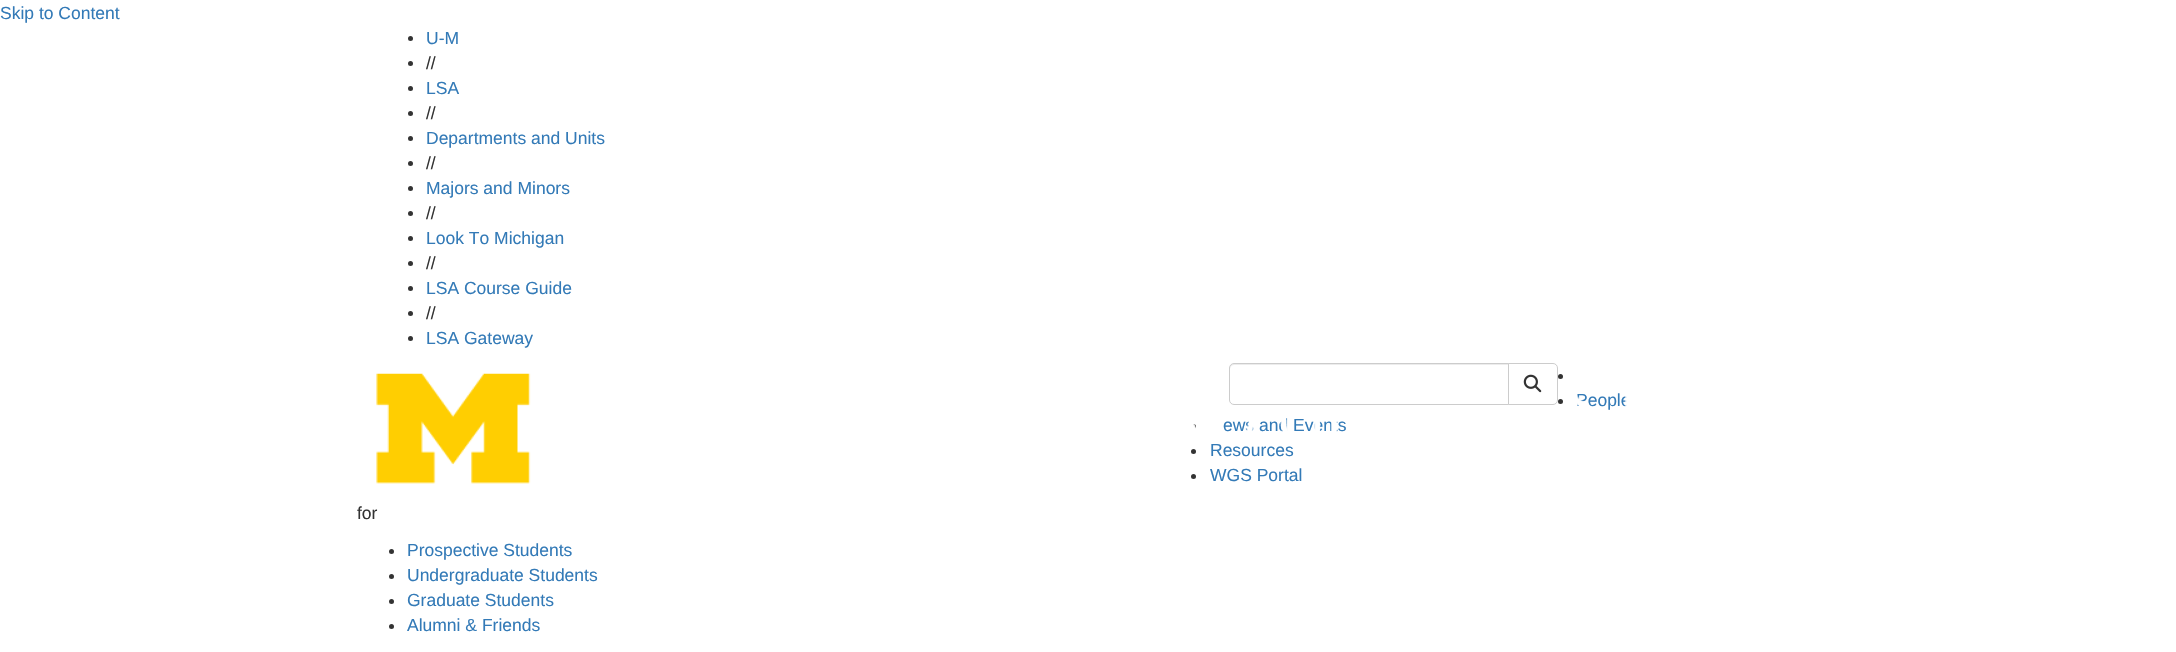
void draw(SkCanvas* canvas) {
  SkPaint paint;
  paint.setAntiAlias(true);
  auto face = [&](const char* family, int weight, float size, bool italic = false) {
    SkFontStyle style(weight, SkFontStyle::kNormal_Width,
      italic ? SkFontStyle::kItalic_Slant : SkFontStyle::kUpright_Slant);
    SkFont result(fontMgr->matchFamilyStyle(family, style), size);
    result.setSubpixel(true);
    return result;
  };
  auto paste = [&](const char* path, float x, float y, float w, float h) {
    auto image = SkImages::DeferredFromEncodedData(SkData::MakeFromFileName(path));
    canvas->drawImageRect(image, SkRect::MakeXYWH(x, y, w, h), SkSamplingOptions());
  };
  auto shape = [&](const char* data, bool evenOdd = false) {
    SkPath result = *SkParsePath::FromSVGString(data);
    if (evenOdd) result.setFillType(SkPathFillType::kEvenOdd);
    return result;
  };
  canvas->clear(0xffffffff);
  paint.setColor(0xff333333);
  canvas->drawCircle(410.5f, 38.5f, 2.5f, paint);
  canvas->drawCircle(410.5f, 63.5f, 2.5f, paint);
  canvas->drawCircle(410.5f, 88.5f, 2.5f, paint);
  canvas->drawCircle(410.5f, 113.5f, 2.5f, paint);
  canvas->drawCircle(410.5f, 138.5f, 2.5f, paint);
  canvas->drawCircle(410.5f, 163.5f, 2.5f, paint);
  canvas->drawCircle(410.5f, 188.5f, 2.5f, paint);
  canvas->drawCircle(410.5f, 213.5f, 2.5f, paint);
  canvas->drawCircle(410.5f, 238.5f, 2.5f, paint);
  canvas->drawCircle(410.5f, 263.5f, 2.5f, paint);
  canvas->drawCircle(410.5f, 288.5f, 2.5f, paint);
  canvas->drawCircle(410.5f, 313.5f, 2.5f, paint);
  canvas->drawCircle(410.5f, 338.5f, 2.5f, paint);
  paint.setColor(0xffececec);
  canvas->drawPath(shape("M1234 365H1508V364H1234C1231 364 1230 366 1230 369C1230 367 1232 365 1234 365Z"), paint);
  paint.setColor(0xff333333);
  canvas->drawCircle(1560.5f, 376.5f, 2.5f, paint);
  canvas->drawCircle(1560.5f, 401.5f, 2.5f, paint);
  canvas->drawCircle(1193.5f, 426.5f, 2.5f, paint);
  canvas->drawCircle(1193.5f, 451.5f, 2.5f, paint);
  canvas->drawCircle(1193.5f, 476.5f, 2.5f, paint);
  canvas->drawCircle(391.5f, 551.5f, 2.5f, paint);
  canvas->drawCircle(391.5f, 576.5f, 2.5f, paint);
  canvas->drawCircle(391.5f, 601.5f, 2.5f, paint);
  canvas->drawCircle(391.5f, 626.5f, 2.5f, paint);
  auto f0 = face("Liberation Sans", 400, 17.5f);
  paint.setColor(0xff337ab7);
  canvas->drawString("Skip to Content", 0, 19, f0, paint);
  canvas->drawString("U-M", 426, 44, f0, paint);
  paint.setColor(0xff333333);
  canvas->drawString("//", 426, 69, f0, paint);
  paint.setColor(0xff337ab7);
  canvas->drawString("LSA", 426, 94, f0, paint);
  paint.setColor(0xff333333);
  canvas->drawString("//", 426, 119, f0, paint);
  paint.setColor(0xff337ab7);
  canvas->drawString("Departments and Units", 426, 144, f0, paint);
  paint.setColor(0xff333333);
  canvas->drawString("//", 426, 169, f0, paint);
  paint.setColor(0xff337ab7);
  canvas->drawString("Majors and Minors", 426, 194, f0, paint);
  paint.setColor(0xff333333);
  canvas->drawString("//", 426, 219, f0, paint);
  paint.setColor(0xff337ab7);
  canvas->drawString("Look To Michigan", 426, 244, f0, paint);
  paint.setColor(0xff333333);
  canvas->drawString("//", 426, 269, f0, paint);
  paint.setColor(0xff337ab7);
  canvas->drawString("LSA Course Guide", 426, 294, f0, paint);
  paint.setColor(0xff333333);
  canvas->drawString("//", 426, 319, f0, paint);
  paint.setColor(0xff337ab7);
  {
    const struct { const char* s; float x, y; } items[] = {
      {"LSA Gateway", 426, 344},
      {"People", 1576, 406},
      {"ews and Events", 1223, 431},
      {"Resources", 1210, 456},
      {"WGS Portal", 1210, 481},
    };
    for (auto [s, x, y] : items) {
      canvas->drawString(s, x, y, f0, paint);
    }
  }
  paste("img/2.png", 376, 373, 1271, 111);
  paint.setStroke(true);
  paint.setStrokeWidth(1);
  paint.setColor(0xffcccccc);
  canvas->drawPath(shape("M1234 363.5H1508.5V404.5H1234C1231.5 404.5 1229.5 402.5 1229.5 400V368C1229.5 365.5 1231.5 363.5 1234 363.5Z"), paint);
  paint.setStroke(false);
  paint.setColor(0xffffffff);
  canvas->drawPath(shape("M1508.5 363.5H1553C1555.5 363.5 1557.5 365.5 1557.5 368V400C1557.5 402.5 1555.5 404.5 1553 404.5H1508.5Z"), paint);
  paint.setStroke(true);
  paint.setColor(0xffcccccc);
  canvas->drawPath(shape("M1508.5 363.5H1553C1555.5 363.5 1557.5 365.5 1557.5 368V400C1557.5 402.5 1555.5 404.5 1553 404.5H1508.5Z"), paint);
  paste("img/1.png", 1523, 374, 19, 19);
  paint.setStroke(false);
  paint.setColor(0xff333333);
  canvas->drawString("for", 357, 519, f0, paint);
  paint.setColor(0xff337ab7);
  {
    const struct { const char* s; float x, y; } items[] = {
      {"Prospective Students", 407, 556},
      {"Undergraduate Students", 407, 581},
      {"Graduate Students", 407, 606},
      {"Alumni & Friends", 407, 631},
    };
    for (auto [s, x, y] : items) {
      canvas->drawString(s, x, y, f0, paint);
    }
  }
}
